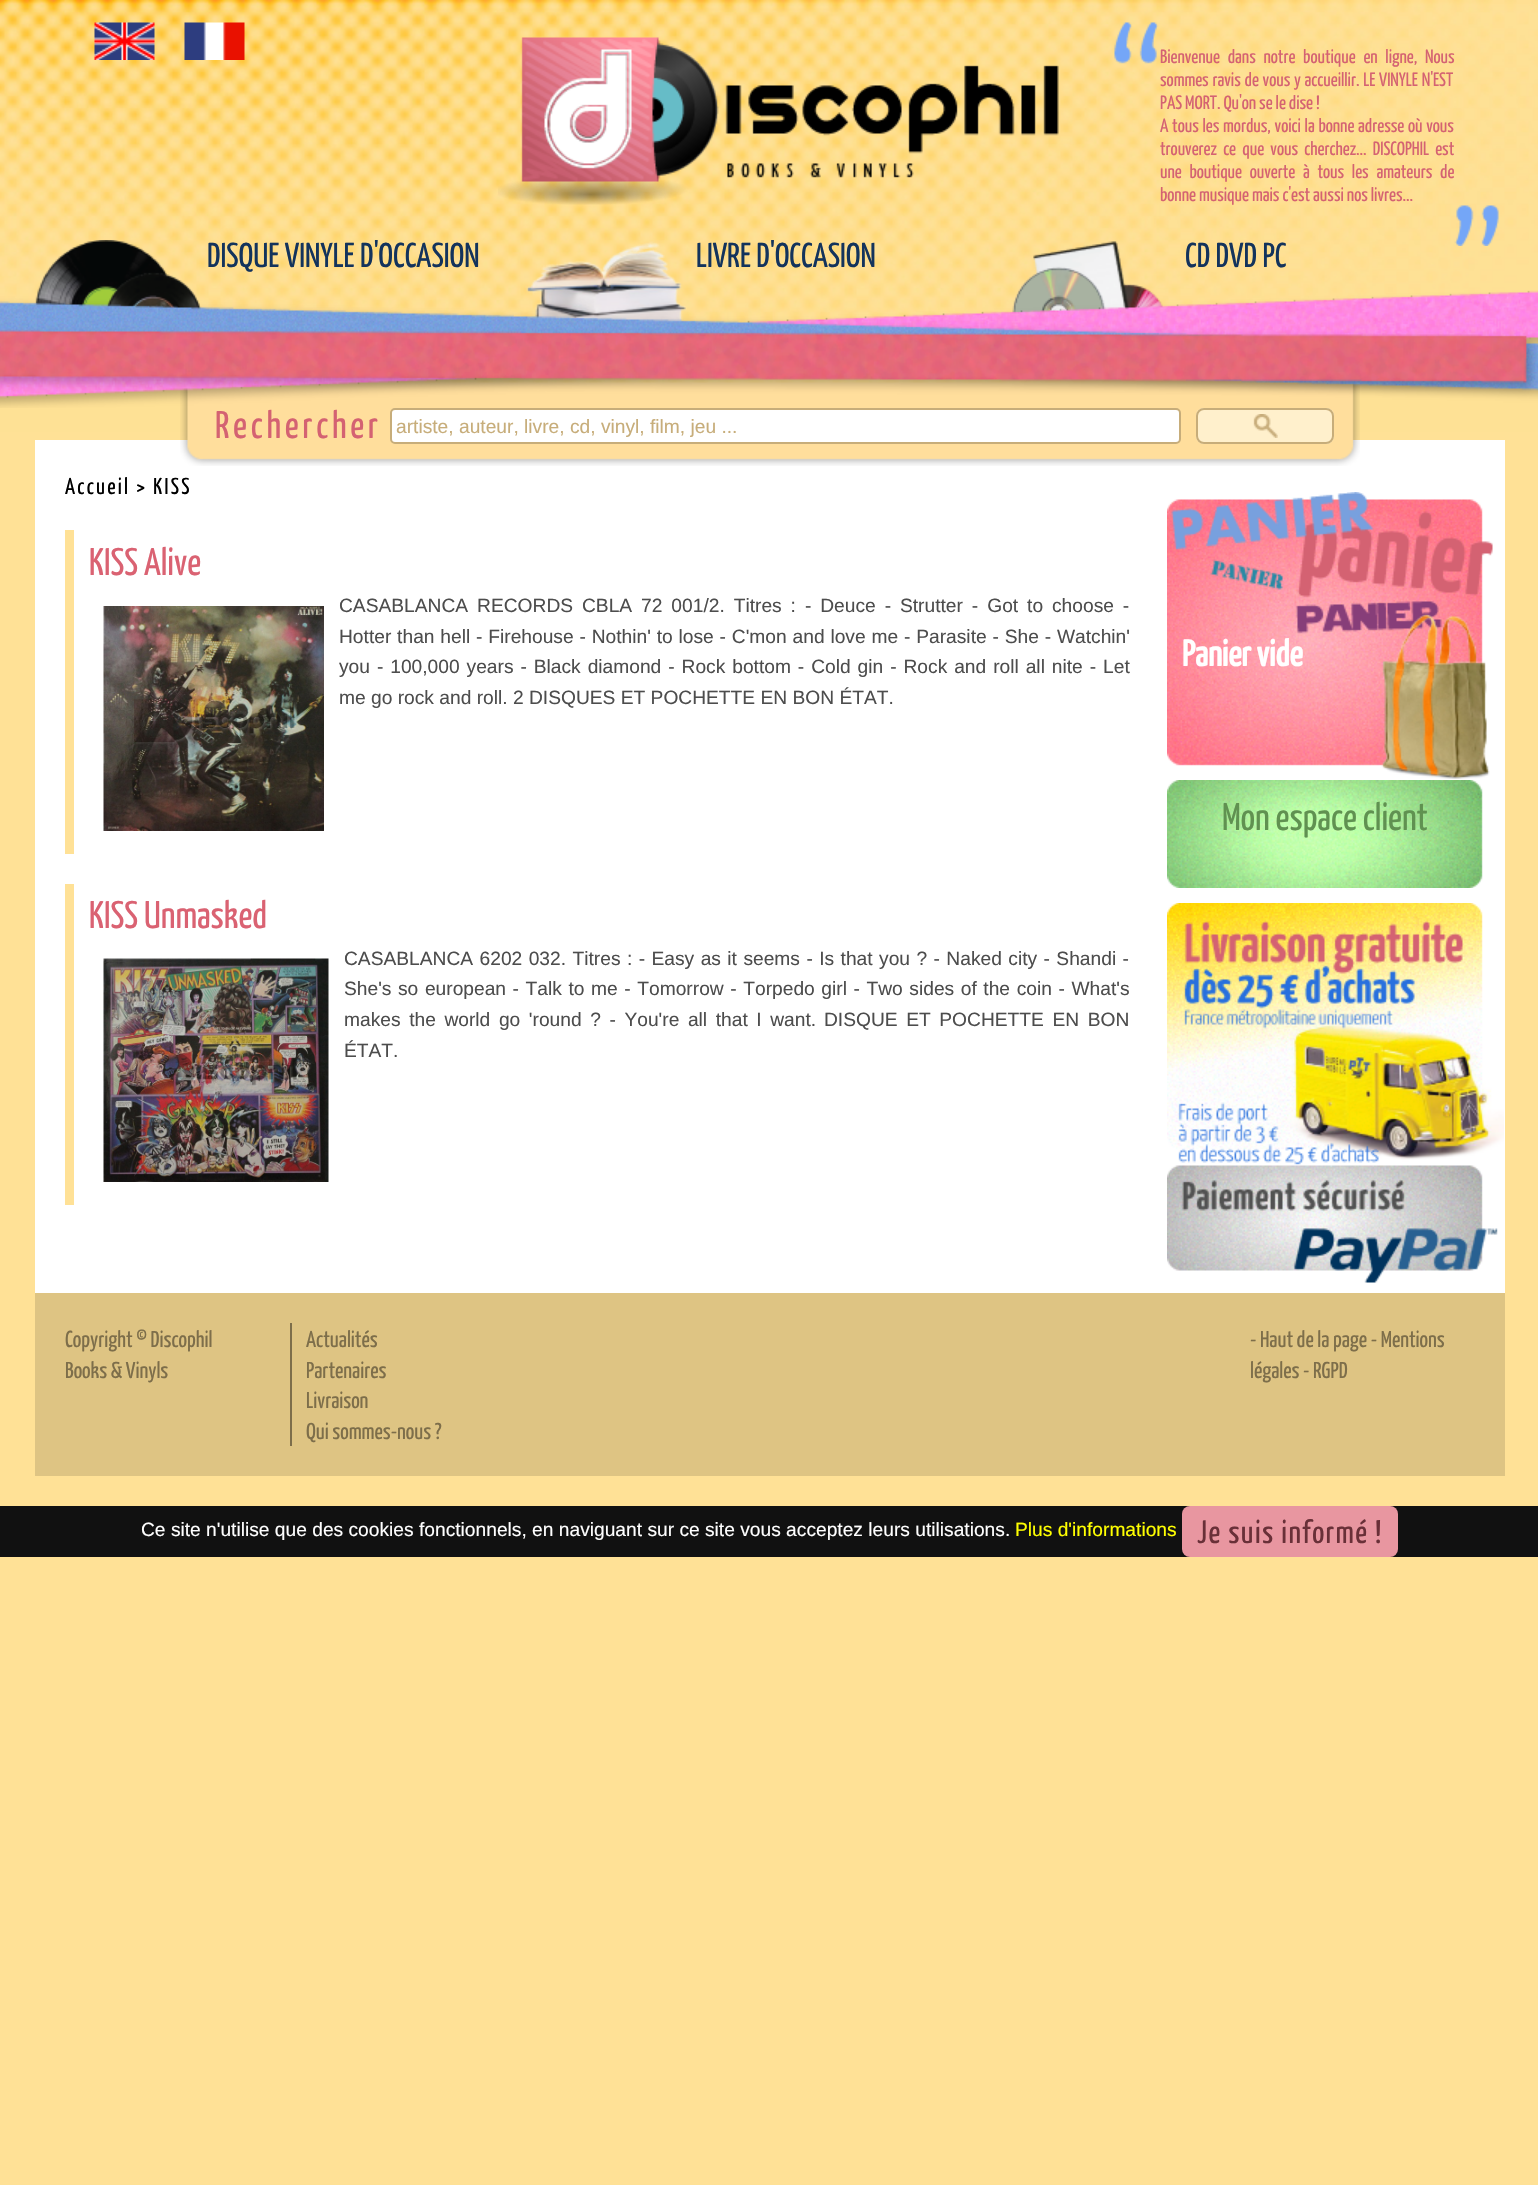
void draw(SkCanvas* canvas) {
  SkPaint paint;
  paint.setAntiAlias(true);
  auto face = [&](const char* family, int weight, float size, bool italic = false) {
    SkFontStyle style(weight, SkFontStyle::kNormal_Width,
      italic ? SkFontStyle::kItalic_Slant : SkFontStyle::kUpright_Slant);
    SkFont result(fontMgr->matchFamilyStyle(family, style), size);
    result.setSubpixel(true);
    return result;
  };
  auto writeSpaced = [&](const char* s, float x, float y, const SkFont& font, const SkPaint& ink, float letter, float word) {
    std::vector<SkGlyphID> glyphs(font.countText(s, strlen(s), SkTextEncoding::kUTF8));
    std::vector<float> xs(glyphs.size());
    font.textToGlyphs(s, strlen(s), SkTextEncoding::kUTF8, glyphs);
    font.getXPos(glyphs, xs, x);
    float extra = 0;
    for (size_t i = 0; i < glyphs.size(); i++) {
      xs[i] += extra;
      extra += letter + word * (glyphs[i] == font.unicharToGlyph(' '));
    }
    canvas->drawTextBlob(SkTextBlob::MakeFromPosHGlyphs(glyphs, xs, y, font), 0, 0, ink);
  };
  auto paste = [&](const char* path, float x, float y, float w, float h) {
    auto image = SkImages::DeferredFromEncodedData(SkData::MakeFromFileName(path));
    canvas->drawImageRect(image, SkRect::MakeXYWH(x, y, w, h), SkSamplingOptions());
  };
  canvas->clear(0xffffe196);
  paste("img/1.png", 0, 0, 1538, 432);
  paste("img/2.png", 94, 22, 61, 38);
  paste("img/3.png", 184, 22, 61, 38);
  paste("img/4.png", 498, 37, 561, 168);
  paste("img/5.png", 1114, 22, 385, 224);
  paste("img/6.png", 35, 240, 167, 70);
  paste("img/7.png", 525, 241, 162, 81);
  paste("img/8.png", 1012, 241, 153, 72);
  paint.setColor(0xffffffff);
  canvas->drawRect(SkRect::MakeXYWH(35, 440, 1470, 853), paint);
  paste("img/10.png", 180, 382, 1180, 84);
  paste("img/9.png", 0, 290, 1538, 118);
  canvas->drawRoundRect(SkRect::MakeXYWH(391, 409, 789, 34), 4, 4, paint);
  paint.setStroke(true);
  paint.setStrokeWidth(2);
  paint.setColor(0xffc7ad7a);
  canvas->drawRoundRect(SkRect::MakeXYWH(391, 409, 789, 34), 4, 4, paint);
  paint.setStroke(false);
  paint.setColor(0xfffff0cc);
  canvas->drawRoundRect(SkRect::MakeXYWH(1196, 408, 138, 36), 8, 8, paint);
  paste("img/11.png", 1253, 414, 25, 24);
  paint.setStroke(true);
  paint.setColor(0xffc7ad7a);
  canvas->drawRoundRect(SkRect::MakeXYWH(1197, 409, 136, 34), 7, 7, paint);
  paint.setStroke(false);
  paint.setColor(0xffffe196);
  canvas->drawRect(SkRect::MakeXYWH(65, 530, 9, 324), paint);
  paste("img/12.png", 103, 606, 221, 225);
  canvas->drawRect(SkRect::MakeXYWH(65, 884, 9, 321), paint);
  paste("img/13.png", 103, 958, 226, 224);
  paste("img/14.png", 1167, 492, 326, 287);
  paste("img/15.png", 1167, 780, 316, 108);
  paste("img/16.png", 1167, 903, 337, 262);
  paste("img/17.png", 1167, 1165, 331, 118);
  {
    const struct { float x, y, w, h; SkColor color; } items[] = {
      {35, 1293, 1470, 183, 0xffdec483},
      {290, 1323, 2, 123, 0xff7d6e4a},
      {0, 1506, 1538, 51, 0xff111111},
    };
    for (auto [x, y, w, h, color] : items) {
      paint.setColor(color);
      canvas->drawRect(SkRect::MakeXYWH(x, y, w, h), paint);
    }
  }
  paint.setColor(0xffe896a0);
  canvas->drawRoundRect(SkRect::MakeXYWH(1182, 1506, 216, 51), 8, 8, paint);
  auto f0 = face("Yanone Kaffeesatz", 400, 19.2f);
  paint.setColor(0xffd46272);
  writeSpaced("Bienvenue dans notre boutique en ligne, Nous", 1160, 63, f0, paint, 0, 4.75f);
  writeSpaced("sommes ravis de vous y accueillir. LE VINYLE N'EST", 1160, 86, f0, paint, 0, 0.75f);
  canvas->drawString("PAS MORT. Qu'on se le dise !", 1160, 109, f0, paint);
  writeSpaced("A tous les mordus, voici la bonne adresse où vous", 1160, 132, f0, paint, 0, 0.75f);
  writeSpaced("trouverez ce que vous cherchez... DISCOPHIL est", 1160, 155, f0, paint, 0, 3.25f);
  writeSpaced("une boutique ouverte à tous les amateurs de", 1160, 178, f0, paint, 0, 4.75f);
  canvas->drawString("bonne musique mais c'est aussi nos livres...", 1160, 201, f0, paint);
  auto f1 = face("Yanone Kaffeesatz", 400, 34.5f);
  paint.setColor(0xff13335c);
  {
    const struct { const char* s; float x, y; } items[] = {
      {"DISQUE VINYLE D'OCCASION", 207, 267},
      {"LIVRE D'OCCASION", 696, 267},
      {"CD DVD PC", 1185, 267},
    };
    for (auto [s, x, y] : items) {
      canvas->drawString(s, x, y, f1, paint);
    }
  }
  auto f2 = face("Yanone Kaffeesatz", 400, 38.5f);
  paint.setColor(0xffd46272);
  writeSpaced("Rechercher", 215, 438, f2, paint, 3.75f, 0);
  auto f3 = face("Liberation Sans", 400, 19.2f);
  paint.setColor(0xffc7ad7a);
  canvas->drawString("artiste, auteur, livre, cd, vinyl, film, jeu ...", 396, 433, f3, paint);
  auto f4 = face("Yanone Kaffeesatz", 400, 23);
  paint.setColor(0xff000000);
  writeSpaced("Accueil > KISS", 65, 494, f4, paint, 2.25f, 0);
  paint.setColor(0xffda6272);
  canvas->drawString("KISS Alive", 89, 575, f2, paint);
  paint.setColor(0xff4d4d4d);
  writeSpaced("CASABLANCA RECORDS CBLA 72 001/2. Titres : - Deuce - Strutter - Got to choose -", 339, 612, f3, paint, 0, 3.6f);
  writeSpaced("Hotter than hell - Firehouse - Nothin' to lose - C'mon and love me - Parasite - She - Watchin'", 339, 643, f3, paint, 0, 0.5f);
  writeSpaced("you - 100,000 years - Black diamond - Rock bottom - Cold gin - Rock and roll all nite - Let", 339, 673, f3, paint, 0, 1.6f);
  canvas->drawString("me go rock and roll. 2 DISQUES ET POCHETTE EN BON ÉTAT.", 339, 704, f3, paint);
  paint.setColor(0xffda6272);
  canvas->drawString("KISS Unmasked", 89, 928, f2, paint);
  paint.setColor(0xff4d4d4d);
  writeSpaced("CASABLANCA 6202 032. Titres : - Easy as it seems - Is that you ? - Naked city - Shandi -", 344, 965, f3, paint, 0, 1.1f);
  writeSpaced("She's so european - Talk to me - Tomorrow - Torpedo girl - Two sides of the coin - What's", 344, 995, f3, paint, 0, 1.25f);
  writeSpaced("makes the world go 'round ? - You're all that I want.", 344, 1026, f3, paint, 0, 3.25f);
  writeSpaced("DISQUE ET POCHETTE EN BON", 824, 1026, f3, paint, 0, 3.25f);
  canvas->drawString("ÉTAT.", 344, 1057, f3, paint);
  auto f5 = face("Yanone Kaffeesatz", 700, 36.5f);
  paint.setColor(0xffffffff);
  canvas->drawString("Panier vide", 1182, 666, f5, paint);
  paint.setColor(0xff609151);
  canvas->drawString("Mon espace client", 1222, 830, f2, paint);
  paint.setColor(0xff7d6e4a);
  {
    const struct { const char* s; float x, y; } items[] = {
      {"Copyright © Discophil", 65, 1347},
      {"Books & Vinyls", 65, 1378},
      {"Actualités", 306, 1347},
      {"Partenaires", 306, 1378},
      {"Livraison", 306, 1408},
      {"Qui sommes-nous ?", 306, 1439},
      {"- Haut de la page - Mentions", 1250, 1347},
      {"légales - RGPD", 1250, 1378},
    };
    for (auto [s, x, y] : items) {
      canvas->drawString(s, x, y, f4, paint);
    }
  }
  paint.setColor(0xffffffff);
  canvas->drawString("Ce site n'utilise que des cookies fonctionnels, en naviguant sur ce site vous acceptez leurs utilisations.", 141, 1536, f3, paint);
  paint.setColor(0xffffff00);
  canvas->drawString("Plus d'informations", 1015, 1536, f3, paint);
  auto f6 = face("Yanone Kaffeesatz", 400, 32.5f);
  paint.setColor(0xff693038);
  writeSpaced("Je suis informé !", 1197, 1543, f6, paint, 1.5f, 0);
}
